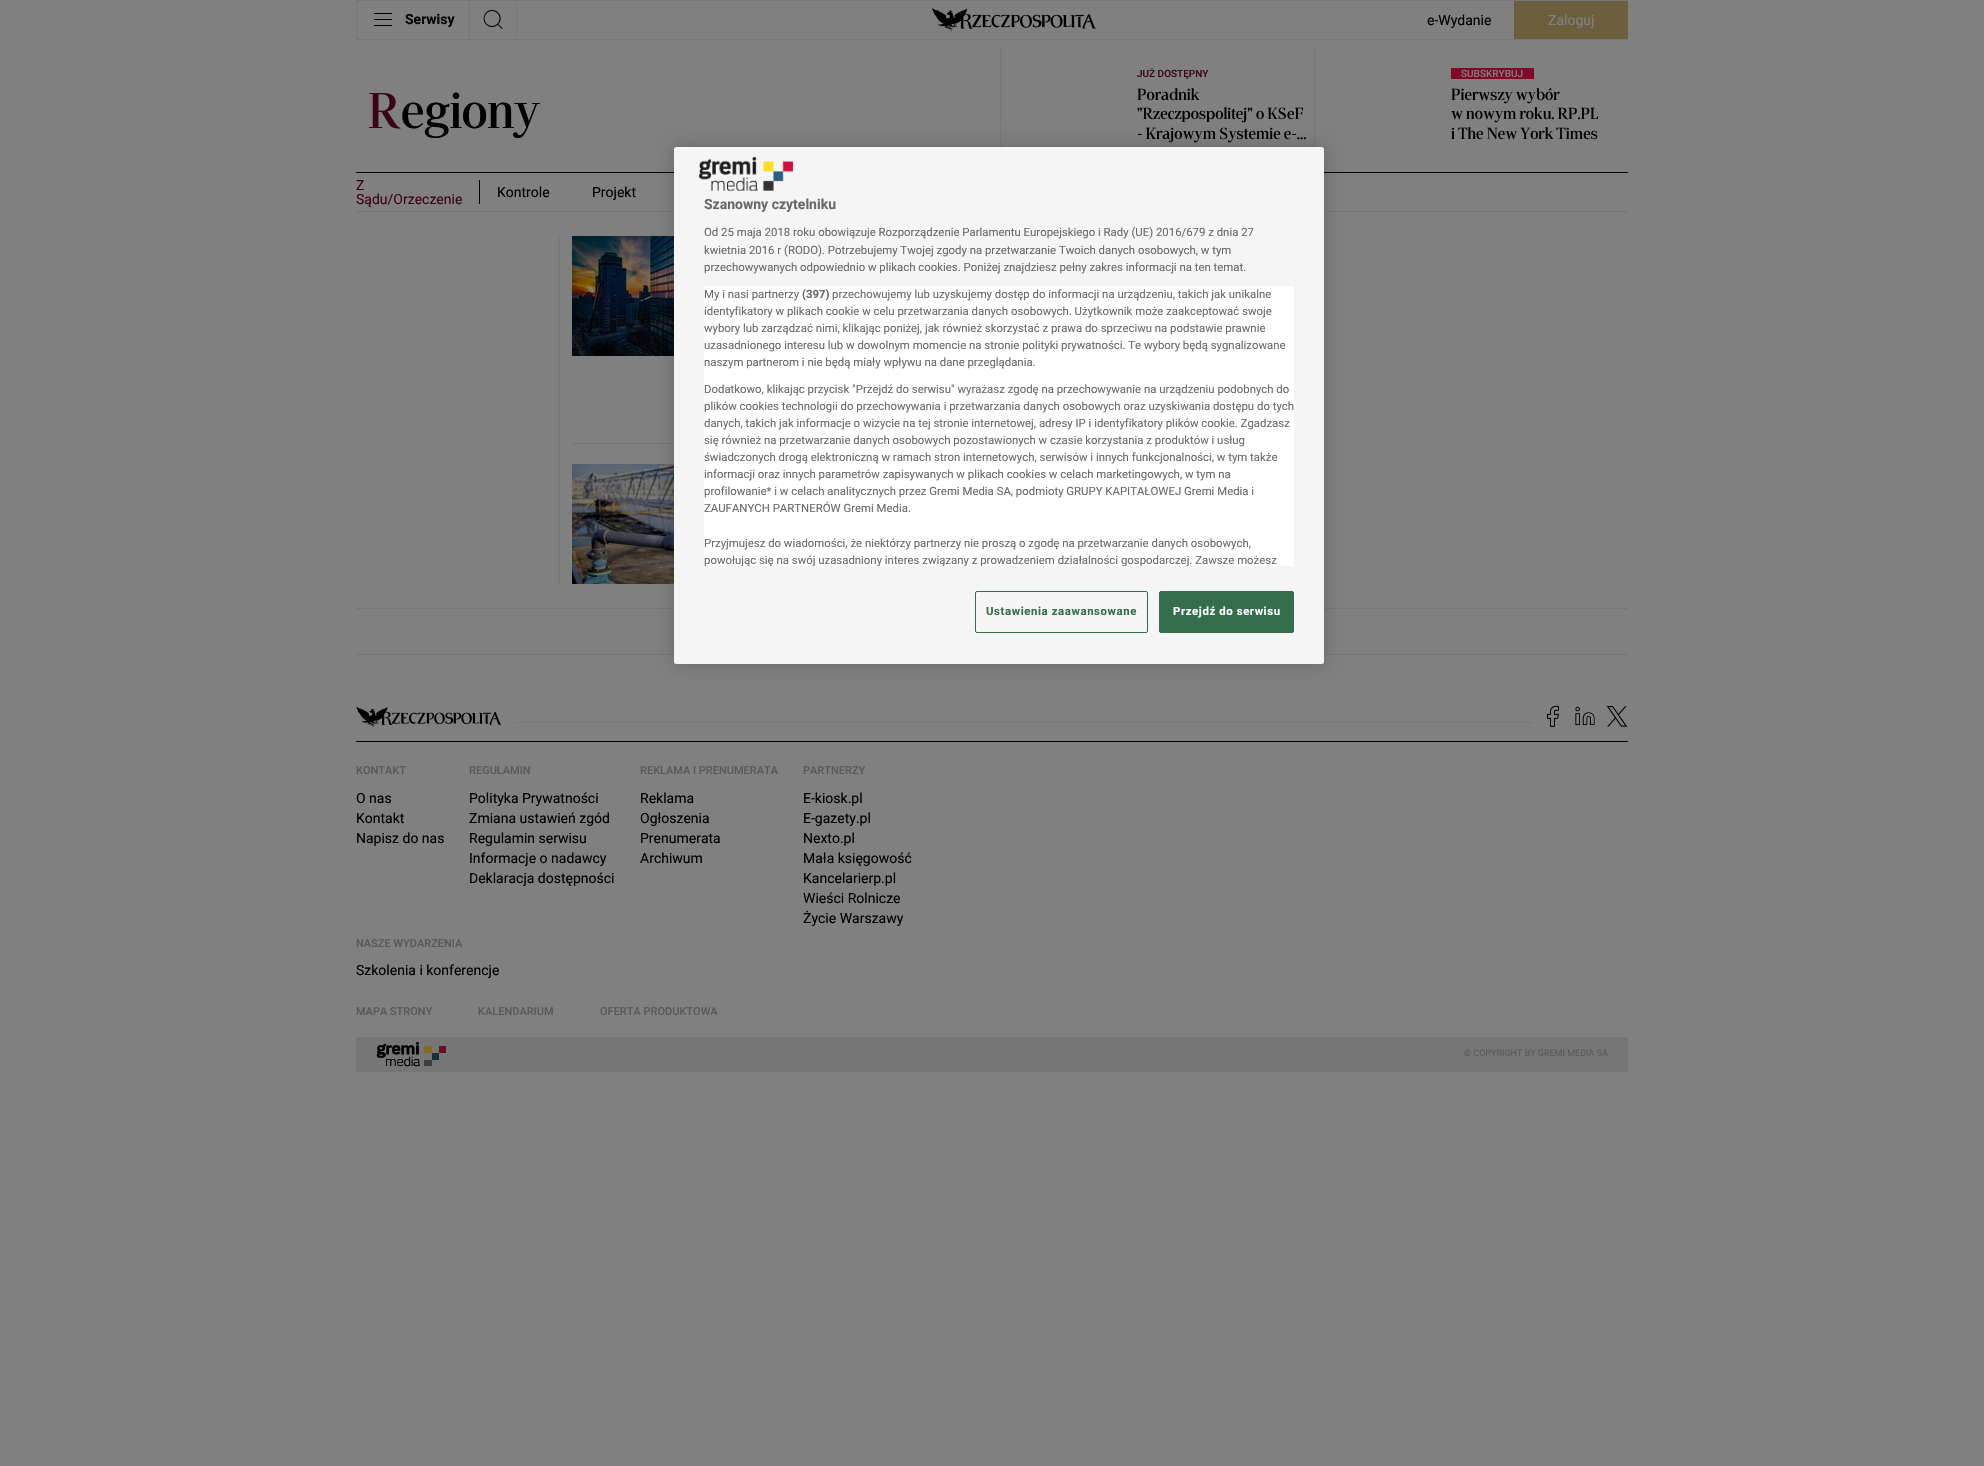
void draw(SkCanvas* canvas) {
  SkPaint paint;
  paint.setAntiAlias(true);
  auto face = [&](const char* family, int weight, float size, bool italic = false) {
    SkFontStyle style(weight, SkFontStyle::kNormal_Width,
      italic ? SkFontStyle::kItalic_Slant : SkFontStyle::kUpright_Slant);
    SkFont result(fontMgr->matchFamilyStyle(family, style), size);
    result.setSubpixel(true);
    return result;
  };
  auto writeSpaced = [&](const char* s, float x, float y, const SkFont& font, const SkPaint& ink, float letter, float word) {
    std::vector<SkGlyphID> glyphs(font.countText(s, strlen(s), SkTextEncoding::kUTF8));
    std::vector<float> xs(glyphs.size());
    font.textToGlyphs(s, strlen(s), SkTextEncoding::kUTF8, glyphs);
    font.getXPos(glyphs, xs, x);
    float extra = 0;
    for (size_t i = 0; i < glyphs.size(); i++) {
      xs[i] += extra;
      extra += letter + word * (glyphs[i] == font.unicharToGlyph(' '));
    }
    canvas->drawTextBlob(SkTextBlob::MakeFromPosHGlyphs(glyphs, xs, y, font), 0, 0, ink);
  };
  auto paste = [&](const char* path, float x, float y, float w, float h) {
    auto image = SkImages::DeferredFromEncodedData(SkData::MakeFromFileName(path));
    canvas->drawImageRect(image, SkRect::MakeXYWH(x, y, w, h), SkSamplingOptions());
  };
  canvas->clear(0xff808080);
  {
    const struct { float x, y, w, h; SkColor color; } items[] = {
      {356, 0, 1272, 1, 0xff767676},
      {356, 39, 1272, 1, 0xff767676},
      {469, 1, 1, 38, 0xff767676},
      {356, 1, 1, 38, 0xff767676},
      {374, 13, 18, 1, 0xff000000},
      {374, 19, 18, 1, 0xff000000},
      {374, 25, 18, 1, 0xff000000},
      {516, 1, 1, 38, 0xff767676},
    };
    for (auto [x, y, w, h, color] : items) {
      paint.setColor(color);
      canvas->drawRect(SkRect::MakeXYWH(x, y, w, h), paint);
    }
  }
  paste("img/1.png", 483, 10, 20, 19);
  paste("img/2.png", 932, 7, 164, 25);
  {
    const struct { float x, y, w, h; SkColor color; } items[] = {
      {1514, 1, 114, 38, 0xff6c5f3e},
      {1000, 48, 1, 99, 0xff767676},
      {1314, 48, 1, 99, 0xff767676},
      {1451, 68, 83, 11, 0xff800725},
      {356, 172, 1272, 1, 0xff000000},
      {356, 211, 1272, 1, 0xff767676},
      {479, 180, 1, 24, 0xff000000},
    };
    for (auto [x, y, w, h, color] : items) {
      paint.setColor(color);
      canvas->drawRect(SkRect::MakeXYWH(x, y, w, h), paint);
    }
  }
  paste("img/4.png", 572, 236, 102, 120);
  paint.setColor(0xff767676);
  canvas->drawRect(SkRect::MakeXYWH(572, 443, 102, 1), paint);
  paste("img/5.png", 572, 464, 102, 120);
  canvas->drawRect(SkRect::MakeXYWH(356, 608, 1272, 1), paint);
  canvas->drawRect(SkRect::MakeXYWH(356, 654, 1272, 1), paint);
  paint.setColor(0x33000000);
  paint.setMaskFilter(SkMaskFilter::MakeBlur(kNormal_SkBlurStyle, 9));
  canvas->drawRoundRect(SkRect::MakeXYWH(674, 147, 650, 517), 2.5f, 2.5f, paint);
  paint.setMaskFilter(nullptr);
  paint.setColor(0xfff5f5f5);
  canvas->drawRoundRect(SkRect::MakeXYWH(674, 147, 650, 517), 2.5f, 2.5f, paint);
  paste("img/3.png", 699, 157, 94, 34);
  paint.setColor(0xffffffff);
  canvas->drawRect(SkRect::MakeXYWH(704, 286, 590, 280), paint);
  paint.setStroke(true);
  paint.setStrokeWidth(1);
  paint.setColor(0xff346e4a);
  canvas->drawRoundRect(SkRect::MakeXYWH(975.5f, 591.5f, 172, 41), 1.5f, 1.5f, paint);
  paint.setStroke(false);
  canvas->drawRoundRect(SkRect::MakeXYWH(1159.5f, 591.5f, 134, 41), 1.5f, 1.5f, paint);
  paint.setStroke(true);
  canvas->drawRoundRect(SkRect::MakeXYWH(1159.5f, 591.5f, 134, 41), 1.5f, 1.5f, paint);
  paint.setStroke(false);
  paint.setColor(0xff767676);
  canvas->drawRect(SkRect::MakeXYWH(559, 236, 1, 348), paint);
  paste("img/6.png", 356, 706, 146, 22);
  canvas->drawRect(SkRect::MakeXYWH(515, 722, 1017, 1), paint);
  paste("img/7.png", 1547, 705, 12, 22);
  paste("img/8.png", 1575, 706, 20, 20);
  paste("img/9.png", 1606, 706, 22, 21);
  paint.setColor(0xff000000);
  canvas->drawRect(SkRect::MakeXYWH(356, 741, 1272, 1), paint);
  paint.setColor(0xff767676);
  canvas->drawRect(SkRect::MakeXYWH(356, 1037, 1272, 35), paint);
  paste("img/10.png", 376, 1042, 70, 25);
  auto f0 = face("Roboto", 700, 14);
  paint.setColor(0xff000000);
  canvas->drawString("Serwisy", 405, 24, f0, paint);
  auto f1 = face("Roboto", 400, 14);
  canvas->drawString("e-Wydanie", 1427, 25, f1, paint);
  paint.setColor(0xff808080);
  canvas->drawString("Zaloguj", 1548, 25, f1, paint);
  auto f2 = face("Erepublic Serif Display", 600, 50);
  paint.setColor(0xff3b0317);
  canvas->drawString("R", 368, 128, f2, paint);
  paint.setColor(0xff000000);
  canvas->drawString("egiony", 401, 128, f2, paint);
  auto f3 = face("Roboto", 500, 10);
  paint.setColor(0xff3b0317);
  canvas->drawString("JUŻ DOSTĘPNY", 1137, 77, f3, paint);
  auto f4 = face("Erepublic Serif Display", 600, 16);
  paint.setColor(0xff000000);
  {
    const struct { const char* s; float x, y; } items[] = {
      {"Poradnik", 1137, 100},
      {"\"Rzeczpospolitej\" o KSeF", 1137, 119},
      {"- Krajowym Systemie e-…", 1137, 139},
    };
    for (auto [s, x, y] : items) {
      canvas->drawString(s, x, y, f4, paint);
    }
  }
  paint.setColor(0xff808080);
  canvas->drawString("SUBSKRYBUJ", 1461, 77, f3, paint);
  paint.setColor(0xff000000);
  {
    const struct { const char* s; float x, y; } items[] = {
      {"Pierwszy wybór", 1451, 100},
      {"w nowym roku. RP.PL", 1451, 119},
      {"i The New York Times", 1451, 139},
    };
    for (auto [s, x, y] : items) {
      canvas->drawString(s, x, y, f4, paint);
    }
  }
  paint.setColor(0xff3b0317);
  canvas->drawString("Z", 356, 190, f1, paint);
  canvas->drawString("Sądu/Orzeczenie", 356, 204, f1, paint);
  paint.setColor(0xff000000);
  canvas->drawString("Kontrole", 497, 197, f1, paint);
  canvas->drawString("Projekt", 592, 197, f1, paint);
  paint.setColor(0xff696969);
  canvas->drawString("Szanowny czytelniku", 704, 209, f0, paint);
  auto f5 = face("Roboto", 400, 11.38f);
  {
    const struct { const char* s; float x, y; } items[] = {
      {"Od 25 maja 2018 roku obowiązuje Rozporządzenie Parlamentu Europejskiego i Rady (UE) 2016/679 z dnia 27", 704, 236},
      {"kwietnia 2016 r (RODO). Potrzebujemy Twojej zgody na przetwarzanie Twoich danych osobowych, w tym", 704, 254},
      {"przechowywanych odpowiednio w plikach cookies. Poniżej znajdziesz pełny zakres informacji na ten temat.", 704, 271},
      {"My i nasi partnerzy", 704, 298},
    };
    for (auto [s, x, y] : items) {
      canvas->drawString(s, x, y, f5, paint);
    }
  }
  auto f6 = face("Roboto", 700, 11.38f);
  canvas->drawString("(397)", 802, 298, f6, paint);
  {
    const struct { const char* s; float x, y; } items[] = {
      {"przechowujemy lub uzyskujemy dostęp do informacji na urządzeniu, takich jak unikalne", 832, 298},
      {"identyfikatory w plikach cookie w celu przetwarzania danych osobowych. Użytkownik może zaakceptować swoje", 704, 315},
      {"wybory lub zarządzać nimi, klikając poniżej, jak również skorzystać z prawa do sprzeciwu na podstawie prawnie", 704, 332},
      {"uzasadnionego interesu lub w dowolnym momencie na stronie polityki prywatności. Te wybory będą sygnalizowane", 704, 349},
      {"naszym partnerom i nie będą miały wpływu na dane przeglądania.", 704, 366},
      {"Dodatkowo, klikając przycisk \"Przejdź do serwisu\" wyrażasz zgodę na przechowywanie na urządzeniu podobnych do", 704, 393},
      {"plików cookies technologii do przechowywania i przetwarzania danych osobowych oraz uzyskiwania dostępu do tych", 704, 410},
      {"danych, takich jak informacje o wizycie na tej stronie internetowej, adresy IP i identyfikatory plików cookie. Zgadzasz", 704, 427},
      {"się również na przetwarzanie danych osobowych pozostawionych w czasie korzystania z produktów i usług", 704, 444},
      {"świadczonych drogą elektroniczną w ramach stron internetowych, serwisów i innych funkcjonalności, w tym także", 704, 461},
      {"informacji oraz innych parametrów zapisywanych w plikach cookies w celach marketingowych, w tym na", 704, 478},
      {"profilowanie* i w celach analitycznych przez Gremi Media SA, podmioty GRUPY KAPITAŁOWEJ Gremi Media i", 704, 495},
      {"ZAUFANYCH PARTNERÓW Gremi Media.", 704, 512},
      {"Przyjmujesz do wiadomości, że niektórzy partnerzy nie proszą o zgodę na przetwarzanie danych osobowych,", 704, 547},
    };
    for (auto [s, x, y] : items) {
      canvas->drawString(s, x, y, f5, paint);
    }
  }
  canvas->save();
  canvas->clipRect(SkRect::MakeXYWH(704, 286, 590, 280));
  canvas->drawString("powołując się na swój uzasadniony interes związany z prowadzeniem działalności gospodarczej. Zawsze możesz", 704, 564, f5, paint);
  canvas->restore();
  paint.setColor(0xff346e4a);
  writeSpaced("Ustawienia zaawansowane", 986, 615, f6, paint, 0.6f, 0);
  paint.setColor(0xffffffff);
  writeSpaced("Przejdź do serwisu", 1173, 615, f6, paint, 0.6f, 0);
  auto f7 = face("Roboto", 500, 11);
  paint.setColor(0xff585858);
  canvas->drawString("KONTAKT", 356, 774, f7, paint);
  paint.setColor(0xff000000);
  {
    const struct { const char* s; float x, y; } items[] = {
      {"O nas", 356, 803},
      {"Kontakt", 356, 823},
      {"Napisz do nas", 356, 843},
    };
    for (auto [s, x, y] : items) {
      canvas->drawString(s, x, y, f1, paint);
    }
  }
  paint.setColor(0xff585858);
  canvas->drawString("REGULAMIN", 469, 774, f7, paint);
  paint.setColor(0xff000000);
  {
    const struct { const char* s; float x, y; } items[] = {
      {"Polityka Prywatności", 469, 803},
      {"Zmiana ustawień zgód", 469, 823},
      {"Regulamin serwisu", 469, 843},
      {"Informacje o nadawcy", 469, 863},
      {"Deklaracja dostępności", 469, 883},
    };
    for (auto [s, x, y] : items) {
      canvas->drawString(s, x, y, f1, paint);
    }
  }
  paint.setColor(0xff585858);
  canvas->drawString("REKLAMA I PRENUMERATA", 640, 774, f7, paint);
  paint.setColor(0xff000000);
  {
    const struct { const char* s; float x, y; } items[] = {
      {"Reklama", 640, 803},
      {"Ogłoszenia", 640, 823},
      {"Prenumerata", 640, 843},
      {"Archiwum", 640, 863},
    };
    for (auto [s, x, y] : items) {
      canvas->drawString(s, x, y, f1, paint);
    }
  }
  paint.setColor(0xff585858);
  canvas->drawString("PARTNERZY", 803, 774, f7, paint);
  paint.setColor(0xff000000);
  {
    const struct { const char* s; float x, y; } items[] = {
      {"E-kiosk.pl", 803, 803},
      {"E-gazety.pl", 803, 823},
      {"Nexto.pl", 803, 843},
      {"Mała księgowość", 803, 863},
      {"Kancelarierp.pl", 803, 883},
      {"Wieści Rolnicze", 803, 903},
      {"Życie Warszawy", 803, 923},
    };
    for (auto [s, x, y] : items) {
      canvas->drawString(s, x, y, f1, paint);
    }
  }
  paint.setColor(0xff585858);
  canvas->drawString("NASZE WYDARZENIA", 356, 947, f7, paint);
  paint.setColor(0xff000000);
  canvas->drawString("Szkolenia i konferencje", 356, 975, f1, paint);
  paint.setColor(0xff585858);
  {
    const struct { const char* s; float x, y; } items[] = {
      {"MAPA STRONY", 356, 1015},
      {"KALENDARIUM", 478, 1015},
      {"OFERTA PRODUKTOWA", 600, 1015},
    };
    for (auto [s, x, y] : items) {
      canvas->drawString(s, x, y, f7, paint);
    }
  }
  auto f8 = face("Roboto", 400, 9);
  canvas->drawString("© COPYRIGHT BY GREMI MEDIA SA", 1464, 1056, f8, paint);
}
